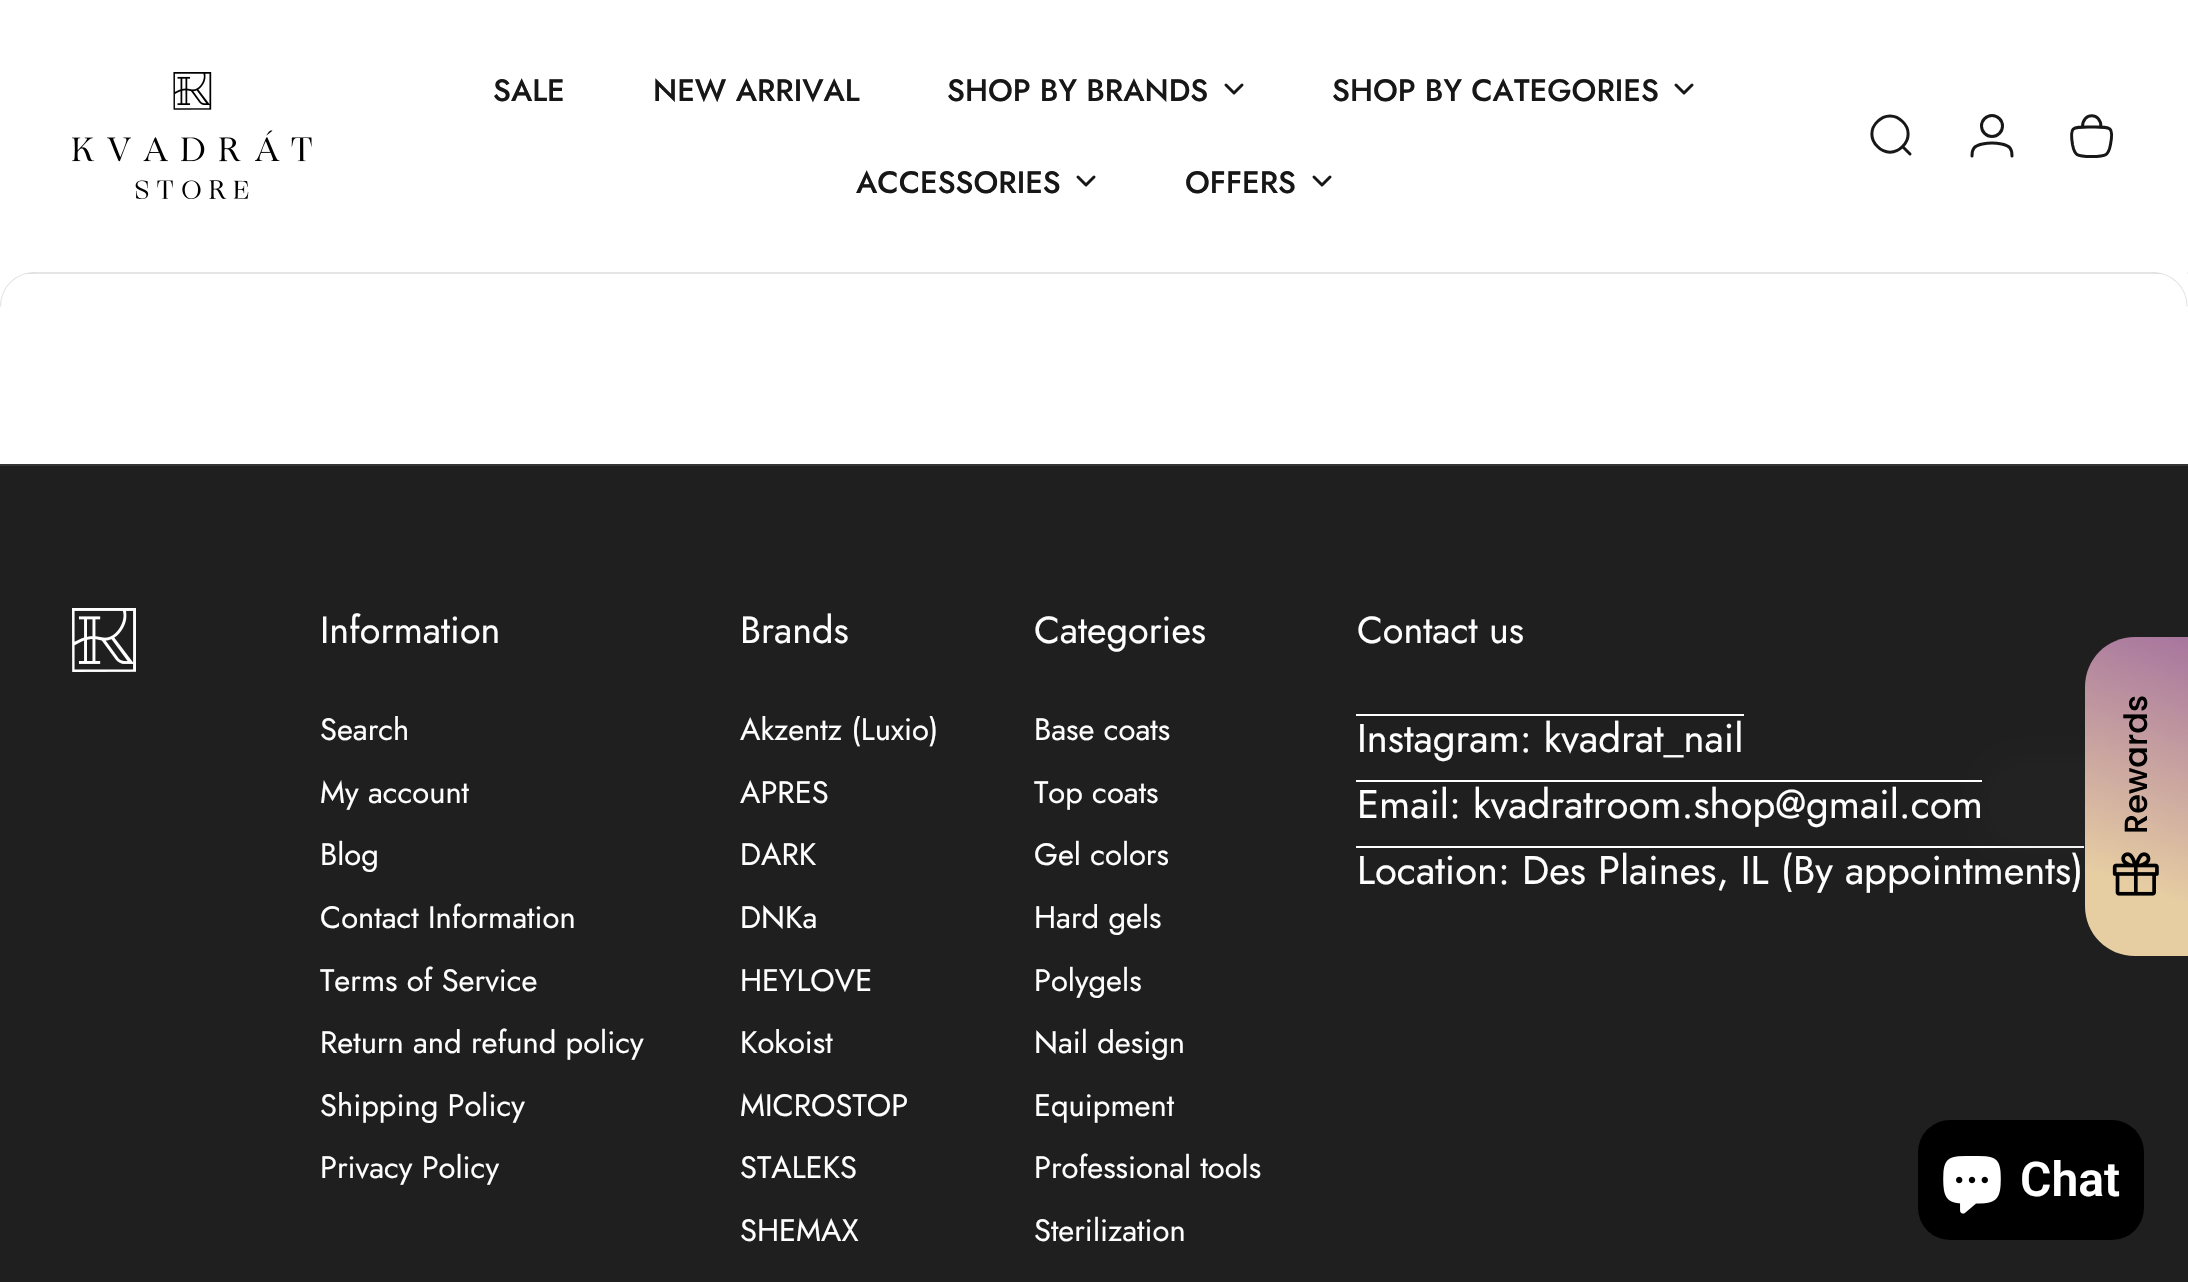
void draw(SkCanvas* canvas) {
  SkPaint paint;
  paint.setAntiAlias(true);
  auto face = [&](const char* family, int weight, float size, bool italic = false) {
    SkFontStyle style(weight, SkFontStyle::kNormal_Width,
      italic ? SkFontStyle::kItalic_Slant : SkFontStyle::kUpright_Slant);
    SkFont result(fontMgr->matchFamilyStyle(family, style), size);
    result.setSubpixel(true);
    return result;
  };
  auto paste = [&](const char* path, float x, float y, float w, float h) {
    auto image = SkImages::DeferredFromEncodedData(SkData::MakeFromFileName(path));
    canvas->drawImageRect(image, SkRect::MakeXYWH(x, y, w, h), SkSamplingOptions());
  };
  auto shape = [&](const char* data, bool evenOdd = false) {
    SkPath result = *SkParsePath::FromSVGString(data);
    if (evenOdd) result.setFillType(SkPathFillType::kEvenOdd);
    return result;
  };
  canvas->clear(0xff1f1f1f);
  paint.setColor(0xffffffff);
  canvas->drawRect(SkRect::MakeXYWH(0, 0, 2188, 272), paint);
  paste("img/1.png", 72, 72, 240, 127);
  paint.setStroke(true);
  paint.setStrokeWidth(3);
  paint.setStrokeCap(SkPaint::kRound_Cap);
  paint.setStrokeJoin(SkPaint::kRound_Join);
  paint.setColor(0xff171717);
  canvas->drawPath(shape("M1226 85L1234 93L1242 85"), paint);
  canvas->drawPath(shape("M1676 85L1684 93L1692 85"), paint);
  canvas->drawPath(shape("M1078 177L1086 185L1094 177"), paint);
  canvas->drawPath(shape("M1314 177L1322 185L1330 177"), paint);
  paint.setStrokeJoin(SkPaint::kMiter_Join);
  canvas->drawPath(shape("M1910 154L1902.5 146.5M1902.5 146.5C1910 139.5 1910 128.5 1902.5 121.5C1895.5 114 1884.5 114 1877.5 121.5C1870 128.5 1870 139.5 1877.5 146.5C1884.5 154 1895.5 154 1902.5 146.5Z"), paint);
  paint.setStrokeCap(SkPaint::kButt_Cap);
  canvas->drawCircle(1992, 126, 10.5f, paint);
  paint.setStrokeCap(SkPaint::kRound_Cap);
  canvas->drawPath(shape("M1992 143C1996.5 143 2007 144 2010 148C2012 150.5 2012 153 2012 156M1992 143C1987.5 143 1977 144 1974 148C1972 150.5 1972 153 1972 156"), paint);
  paint.setStrokeCap(SkPaint::kButt_Cap);
  canvas->drawPath(shape("M2082.5 127C2082.5 112 2101 112 2101 127M2091.5 127C2072 127 2069.5 126 2072.5 144.5C2074.5 155 2076 156.5 2091.5 156.5C2107 156.5 2108.5 155 2110.5 144.5C2114 126 2111 127 2091.5 127Z"), paint);
  paint.setStroke(false);
  paint.setColor(0xffe5e5e5);
  canvas->drawRect(SkRect::MakeXYWH(24, 272, 2164, 2), paint);
  paint.setColor(0xffffffff);
  canvas->drawRect(SkRect::MakeXYWH(0, 274, 2188, 190), paint);
  canvas->drawPath(shape("M34.5 272H0V306.5H.5C.5 287.5 15.5 272.5 34.5 272.5Z", true), paint);
  paint.setStroke(true);
  paint.setStrokeWidth(1.2f);
  paint.setColor(0x1c171717);
  canvas->drawPath(shape("M.5 306.5C.5 287.5 15.5 272.5 34.5 272.5"), paint);
  paint.setStroke(false);
  paint.setColor(0xffffffff);
  canvas->drawPath(shape("M2153 272H2187.5V306.5H2187C2187 287.5 2172 272.5 2153 272.5Z", true), paint);
  paint.setStroke(true);
  paint.setColor(0x1c171717);
  canvas->drawPath(shape("M2187 306.5C2187 287.5 2172 272.5 2153 272.5"), paint);
  paint.setStroke(false);
  paint.setColor(0xff353535);
  canvas->drawRect(SkRect::MakeXYWH(0, 464, 2188, 2), paint);
  paste("img/2.png", 72, 608, 64, 64);
  {
    const struct { float x, y, w, h; SkColor color; } items[] = {
      {1356, 714, 388, 2, 0xffffffff},
      {1356, 780, 626, 2, 0xffffffff},
      {1356, 846, 728, 2, 0xffffffff},
    };
    for (auto [x, y, w, h, color] : items) {
      paint.setColor(color);
      canvas->drawRect(SkRect::MakeXYWH(x, y, w, h), paint);
    }
  }
  paint.setColor(0x14444444);
  paint.setMaskFilter(SkMaskFilter::MakeBlur(kNormal_SkBlurStyle, 8));
  canvas->drawRoundRect(SkRect::MakeXYWH(1982, 756, 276, 96), 46, 46, paint);
  paint.setMaskFilter(nullptr);
  {
    const SkColor colors[] = {0xffe7cea2, 0xff86469c};
    const float stops[] = {0.17f, 1};
    const SkPoint ends[] = {{2081, 955}, {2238, 511}};
    paint.setShader(SkGradientShader::MakeLinear(ends, colors, stops, 2, SkTileMode::kClamp));
    paint.setAlpha(255);
  }
  canvas->drawPath(shape("M2085 906V687C2085 659 2107 637 2135 637H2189V956H2135C2107 956 2085 934 2085 906Z"), paint);
  paste("img/3.png", 2112, 852, 47, 44);
  paint.setShader(nullptr);
  paint.setColor(0xff000000);
  canvas->drawRoundRect(SkRect::MakeXYWH(1918, 1120, 226, 120), 32, 32, paint);
  paste("img/4.png", 1943, 1156, 58, 58);
  auto f0 = face("Jost", 500, 30.9f);
  paint.setColor(0xff171717);
  {
    const struct { const char* s; float x, y; } items[] = {
      {"SALE", 493, 101},
      {"NEW ARRIVAL", 653, 101},
      {"SHOP BY BRANDS", 947, 101},
      {"SHOP BY CATEGORIES", 1332, 101},
      {"ACCESSORIES", 856, 193},
      {"OFFERS", 1185, 193},
    };
    for (auto [s, x, y] : items) {
      canvas->drawString(s, x, y, f0, paint);
    }
  }
  auto f1 = face("Jost", 400, 37.75f);
  paint.setColor(0xffffffff);
  canvas->drawString("Information", 320, 643, f1, paint);
  auto f2 = face("Jost", 400, 30.9f);
  {
    const struct { const char* s; float x, y; } items[] = {
      {"Search", 320, 740},
      {"My account", 320, 803},
      {"Blog", 320, 865},
      {"Contact Information", 320, 928},
      {"Terms of Service", 320, 991},
      {"Return and refund policy", 320, 1053},
      {"Shipping Policy", 320, 1116},
      {"Privacy Policy", 320, 1178},
    };
    for (auto [s, x, y] : items) {
      canvas->drawString(s, x, y, f2, paint);
    }
  }
  canvas->drawString("Brands", 740, 643, f1, paint);
  {
    const struct { const char* s; float x, y; } items[] = {
      {"Akzentz (Luxio)", 740, 740},
      {"APRES", 740, 803},
      {"DARK", 740, 865},
      {"DNKa", 740, 928},
      {"HEYLOVE", 740, 991},
      {"Kokoist", 740, 1053},
      {"MICROSTOP", 740, 1116},
      {"STALEKS", 740, 1178},
      {"SHEMAX", 740, 1241},
    };
    for (auto [s, x, y] : items) {
      canvas->drawString(s, x, y, f2, paint);
    }
  }
  canvas->drawString("Categories", 1034, 643, f1, paint);
  {
    const struct { const char* s; float x, y; } items[] = {
      {"Base coats", 1034, 740},
      {"Top coats", 1034, 803},
      {"Gel colors", 1034, 865},
      {"Hard gels", 1034, 928},
      {"Polygels", 1034, 991},
      {"Nail design", 1034, 1053},
      {"Equipment", 1034, 1116},
      {"Professional tools", 1034, 1178},
      {"Sterilization", 1034, 1241},
    };
    for (auto [s, x, y] : items) {
      canvas->drawString(s, x, y, f2, paint);
    }
  }
  canvas->drawString("Contact us", 1357, 643, f1, paint);
  auto f3 = face("Jost", 400, 40);
  {
    const struct { const char* s; float x, y; } items[] = {
      {"Instagram: kvadrat_nail", 1357, 752},
      {"Email: kvadratroom.shop@gmail.com", 1357, 818},
      {"Location: Des Plaines, IL (By appointments)", 1357, 884},
    };
    for (auto [s, x, y] : items) {
      canvas->drawString(s, x, y, f3, paint);
    }
  }
  auto f4 = face("Poppins", 500, 32);
  paint.setColor(0xff000000);
  canvas->save();
  canvas->rotate(-90, 2147, 834);
  canvas->drawString("Rewards", 2147, 834, f4, paint);
  canvas->restore();
  auto f5 = face("Roboto", 600, 48);
  paint.setColor(0xffffffff);
  canvas->drawString("Chat", 2020, 1196, f5, paint);
}
